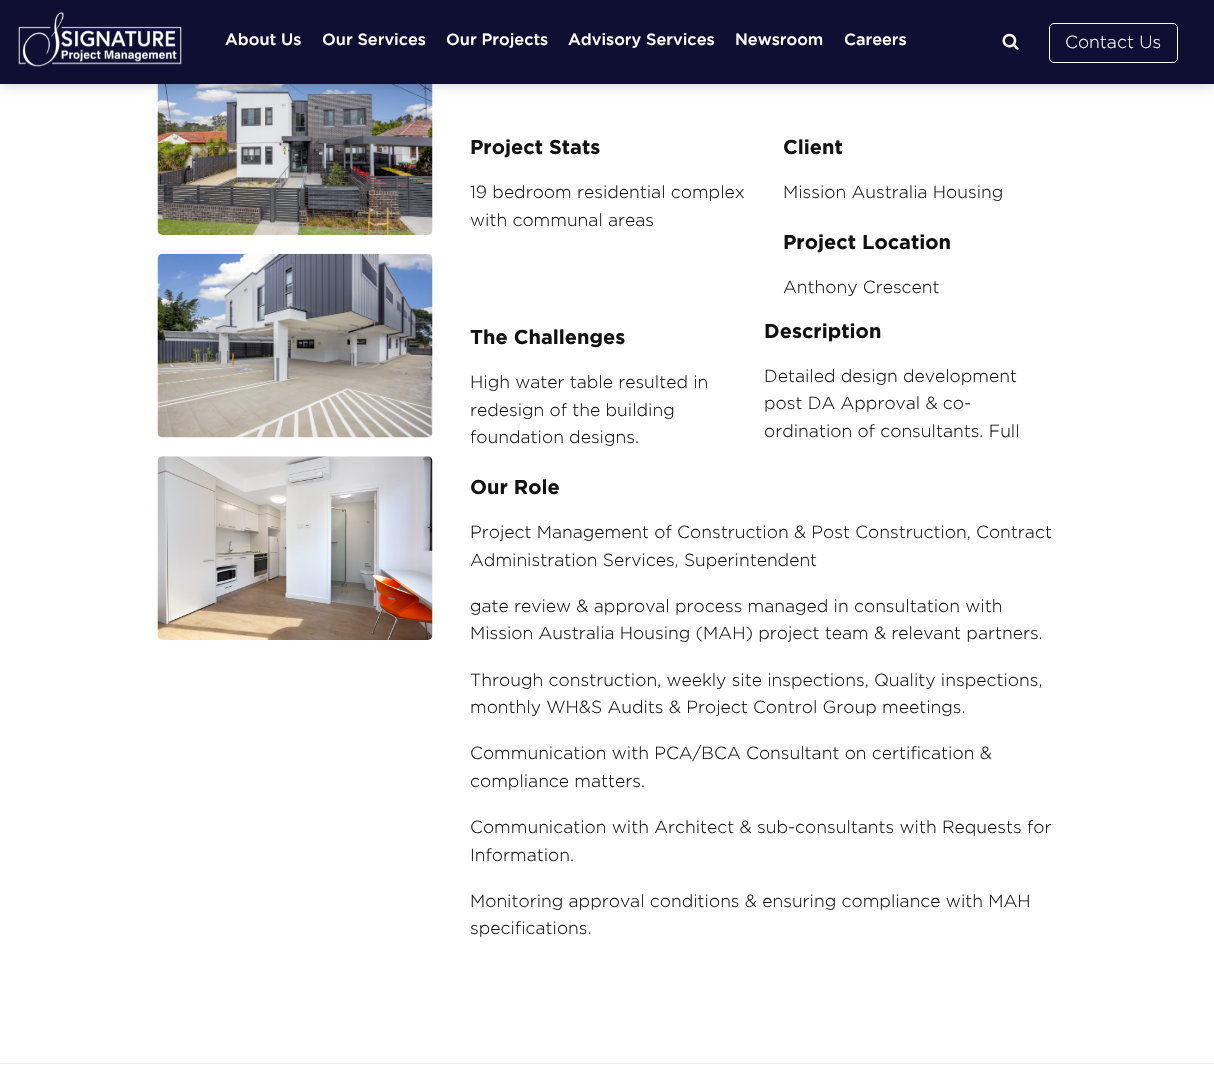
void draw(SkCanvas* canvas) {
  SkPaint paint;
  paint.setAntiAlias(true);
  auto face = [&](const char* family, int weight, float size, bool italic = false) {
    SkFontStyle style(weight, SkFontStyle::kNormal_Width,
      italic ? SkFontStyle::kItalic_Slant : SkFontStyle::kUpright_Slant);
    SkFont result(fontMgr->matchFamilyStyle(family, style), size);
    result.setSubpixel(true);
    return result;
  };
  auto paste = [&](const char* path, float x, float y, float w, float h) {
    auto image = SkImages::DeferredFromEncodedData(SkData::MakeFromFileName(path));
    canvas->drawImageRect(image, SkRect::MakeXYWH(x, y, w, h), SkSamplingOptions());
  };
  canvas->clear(0xffffffff);
  paste("img/3.png", 157, 84, 276, 151);
  paint.setColor(0x33000000);
  paint.setMaskFilter(SkMaskFilter::MakeBlur(kNormal_SkBlurStyle, 6));
  canvas->drawRect(SkRect::MakeXYWH(0, 0, 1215, 84), paint);
  paint.setMaskFilter(nullptr);
  paint.setColor(0xff0f0f33);
  canvas->drawRect(SkRect::MakeXYWH(0, 0, 1214, 84), paint);
  paste("img/1.png", 18, 12, 164, 55);
  paste("img/2.png", 1002, 33, 17, 17);
  paint.setStroke(true);
  paint.setStrokeWidth(1);
  paint.setColor(0xffffffff);
  canvas->drawRoundRect(SkRect::MakeXYWH(1049.5f, 23.5f, 128, 39), 4.5f, 4.5f, paint);
  paste("img/4.png", 157, 253, 276, 185);
  paste("img/5.png", 157, 456, 276, 184);
  paint.setStroke(false);
  paint.setColor(0xffeeeeee);
  canvas->drawRect(SkRect::MakeXYWH(0, 1063, 1214, 1), paint);
  auto f0 = face("Gotham", 500, 16.25f);
  paint.setColor(0xffffffff);
  {
    const struct { const char* s; float x, y; } items[] = {
      {"About Us", 225, 45},
      {"Our Services", 322, 45},
      {"Our Projects", 446, 45},
      {"Advisory Services", 568, 45},
      {"Newsroom", 735, 45},
      {"Careers", 844, 45},
    };
    for (auto [s, x, y] : items) {
      canvas->drawString(s, x, y, f0, paint);
    }
  }
  auto f1 = face("Gotham", 300, 17.5f);
  canvas->drawString("Contact Us", 1065, 48, f1, paint);
  auto f2 = face("Gotham", 700, 20);
  paint.setColor(0xff111111);
  canvas->drawString("Project Stats", 470, 154, f2, paint);
  canvas->drawString("19 bedroom residential complex", 470, 198, f1, paint);
  canvas->drawString("with communal areas", 470, 226, f1, paint);
  canvas->drawString("Client", 783, 154, f2, paint);
  canvas->drawString("Mission Australia Housing", 783, 198, f1, paint);
  canvas->drawString("Project Location", 783, 249, f2, paint);
  canvas->drawString("Anthony Crescent", 783, 293, f1, paint);
  canvas->drawString("Description", 764, 338, f2, paint);
  {
    const struct { const char* s; float x, y; } items[] = {
      {"Detailed design development", 764, 382},
      {"post DA Approval & co-", 764, 409},
      {"ordination of consultants. Full", 764, 437},
      {"gate review & approval process managed in consultation with", 470, 612},
      {"Mission Australia Housing (MAH) project team & relevant partners.", 470, 639},
      {"Through construction, weekly site inspections, Quality inspections,", 470, 686},
      {"monthly WH&S Audits & Project Control Group meetings.", 470, 713},
      {"Communication with PCA/BCA Consultant on certification &", 470, 759},
      {"compliance matters.", 470, 787},
      {"Communication with Architect & sub-consultants with Requests for", 470, 833},
      {"Information.", 470, 861},
      {"Monitoring approval conditions & ensuring compliance with MAH", 470, 907},
      {"specifications.", 470, 934},
    };
    for (auto [s, x, y] : items) {
      canvas->drawString(s, x, y, f1, paint);
    }
  }
  canvas->drawString("The Challenges", 470, 344, f2, paint);
  {
    const struct { const char* s; float x, y; } items[] = {
      {"High water table resulted in", 470, 388},
      {"redesign of the building", 470, 416},
      {"foundation designs.", 470, 443},
    };
    for (auto [s, x, y] : items) {
      canvas->drawString(s, x, y, f1, paint);
    }
  }
  canvas->drawString("Our Role", 470, 494, f2, paint);
  canvas->drawString("Project Management of Construction & Post Construction, Contract", 470, 538, f1, paint);
  canvas->drawString("Administration Services, Superintendent", 470, 566, f1, paint);
}
